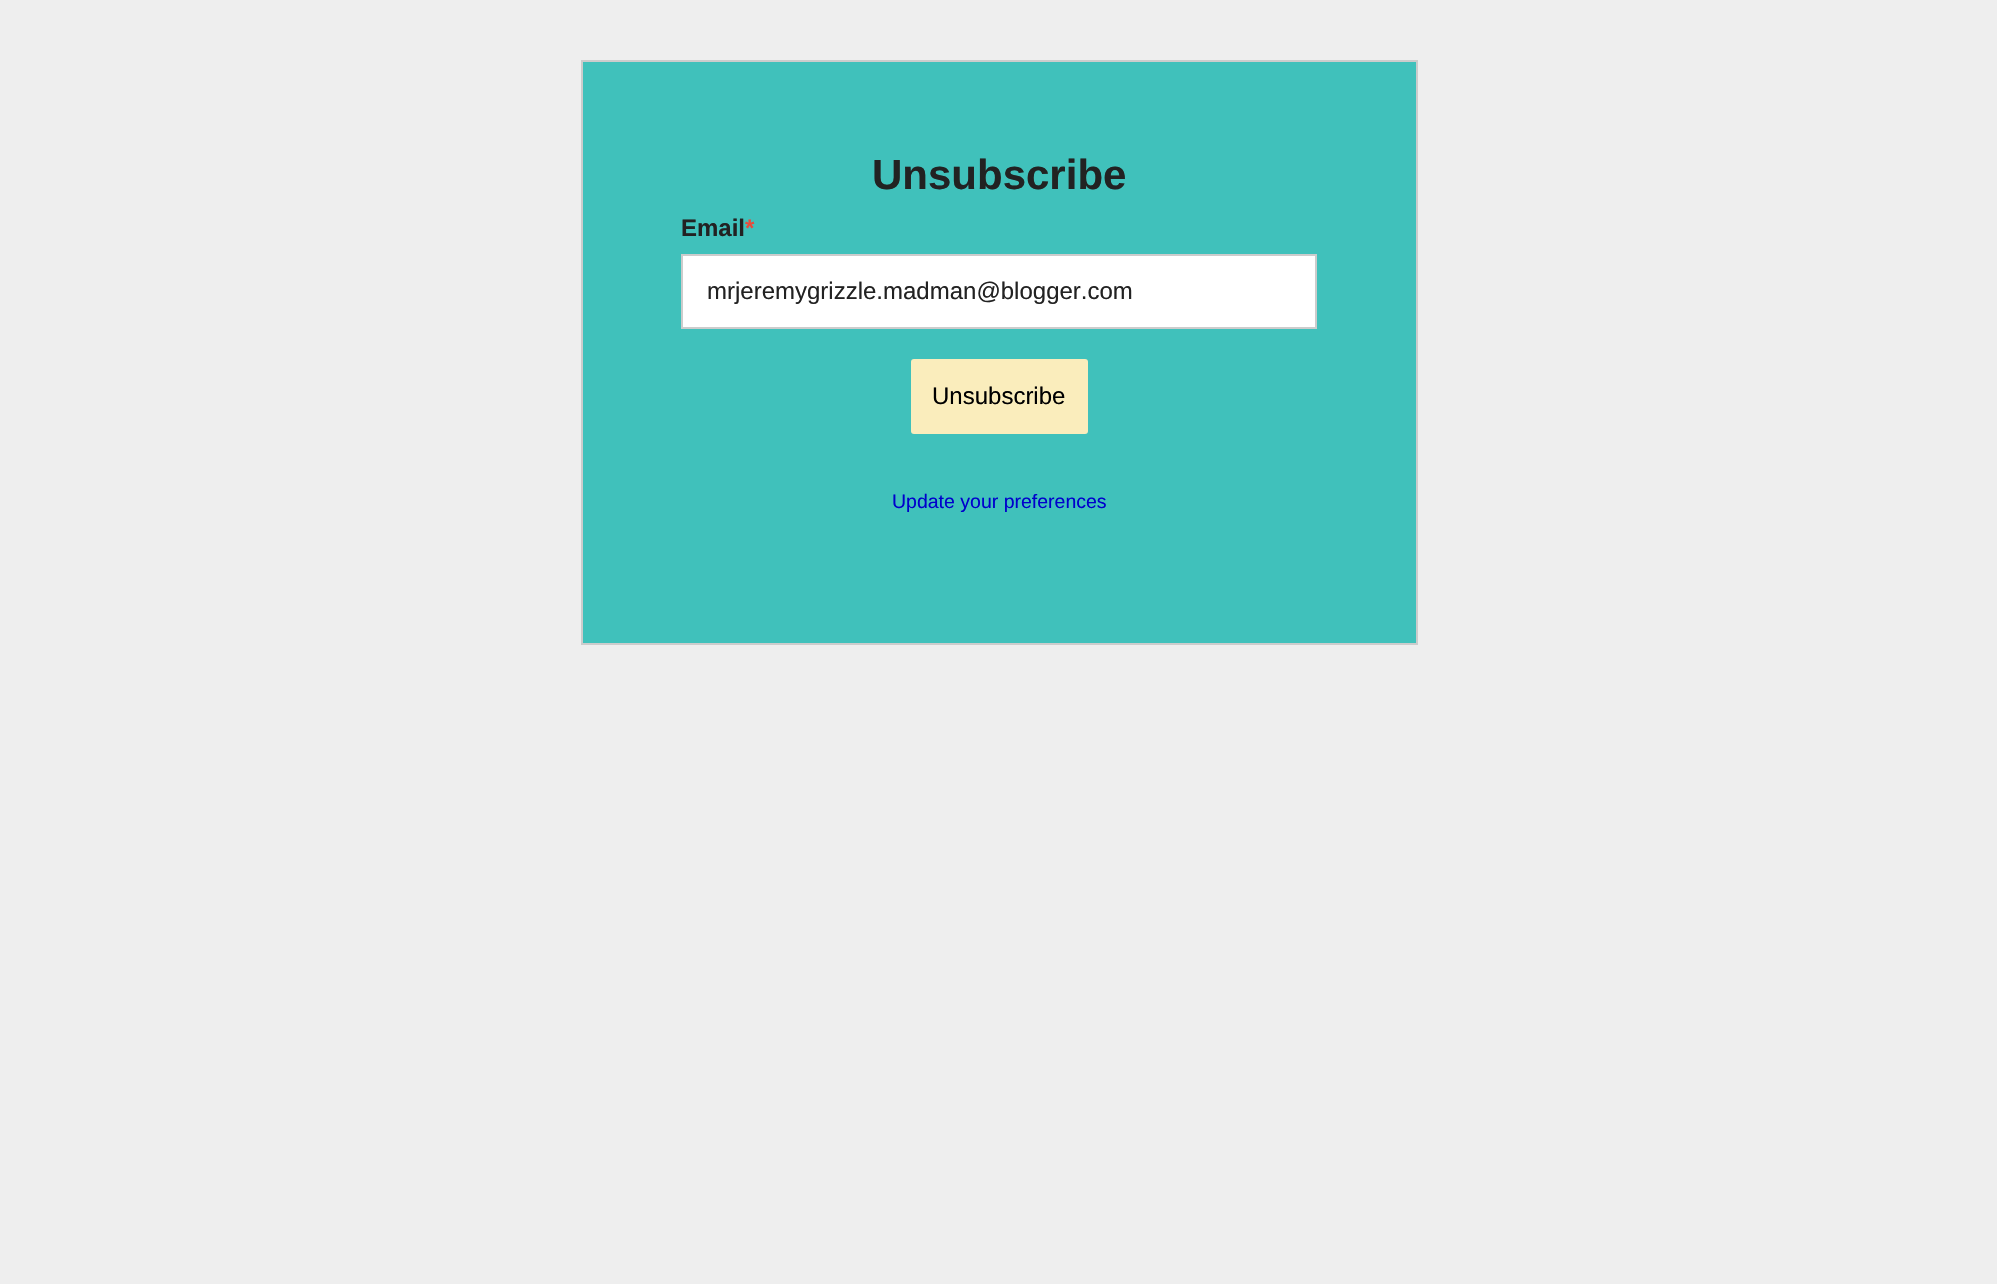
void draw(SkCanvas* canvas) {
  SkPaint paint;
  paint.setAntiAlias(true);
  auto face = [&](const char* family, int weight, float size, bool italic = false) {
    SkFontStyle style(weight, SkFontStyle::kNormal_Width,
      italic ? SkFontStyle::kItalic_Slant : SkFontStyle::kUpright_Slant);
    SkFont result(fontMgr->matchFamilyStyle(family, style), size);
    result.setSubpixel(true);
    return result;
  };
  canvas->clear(0xffeeeeee);
  paint.setColor(0xff40c1bb);
  canvas->drawRect(SkRect::MakeXYWH(582, 61, 835, 583), paint);
  paint.setStroke(true);
  paint.setStrokeWidth(2);
  paint.setColor(0xffcccccc);
  canvas->drawRect(SkRect::MakeXYWH(582, 61, 835, 583), paint);
  paint.setStroke(false);
  paint.setColor(0xffffffff);
  canvas->drawRect(SkRect::MakeXYWH(682, 255, 634, 73), paint);
  paint.setStroke(true);
  paint.setColor(0xffcccccc);
  canvas->drawRect(SkRect::MakeXYWH(682, 255, 634, 73), paint);
  paint.setStroke(false);
  paint.setColor(0xfffaedbc);
  canvas->drawRoundRect(SkRect::MakeXYWH(911, 359, 177, 75), 3, 3, paint);
  auto f0 = face("Liberation Sans", 700, 42);
  paint.setColor(0xff222222);
  canvas->drawString("Unsubscribe", 872, 189, f0, paint);
  auto f1 = face("Liberation Sans", 700, 24);
  canvas->drawString("Email", 681, 236, f1, paint);
  paint.setColor(0xffe74c3c);
  canvas->drawString("*", 745, 236, f1, paint);
  auto f2 = face("Liberation Sans", 400, 24);
  paint.setColor(0xff222222);
  canvas->drawString("mrjeremygrizzle.madman@blogger.com", 707, 299, f2, paint);
  paint.setColor(0xff000000);
  canvas->drawString("Unsubscribe", 932, 404, f2, paint);
  auto f3 = face("Liberation Sans", 400, 19.5f);
  paint.setColor(0xff0000cc);
  canvas->drawString("Update your preferences", 892, 508, f3, paint);
}
